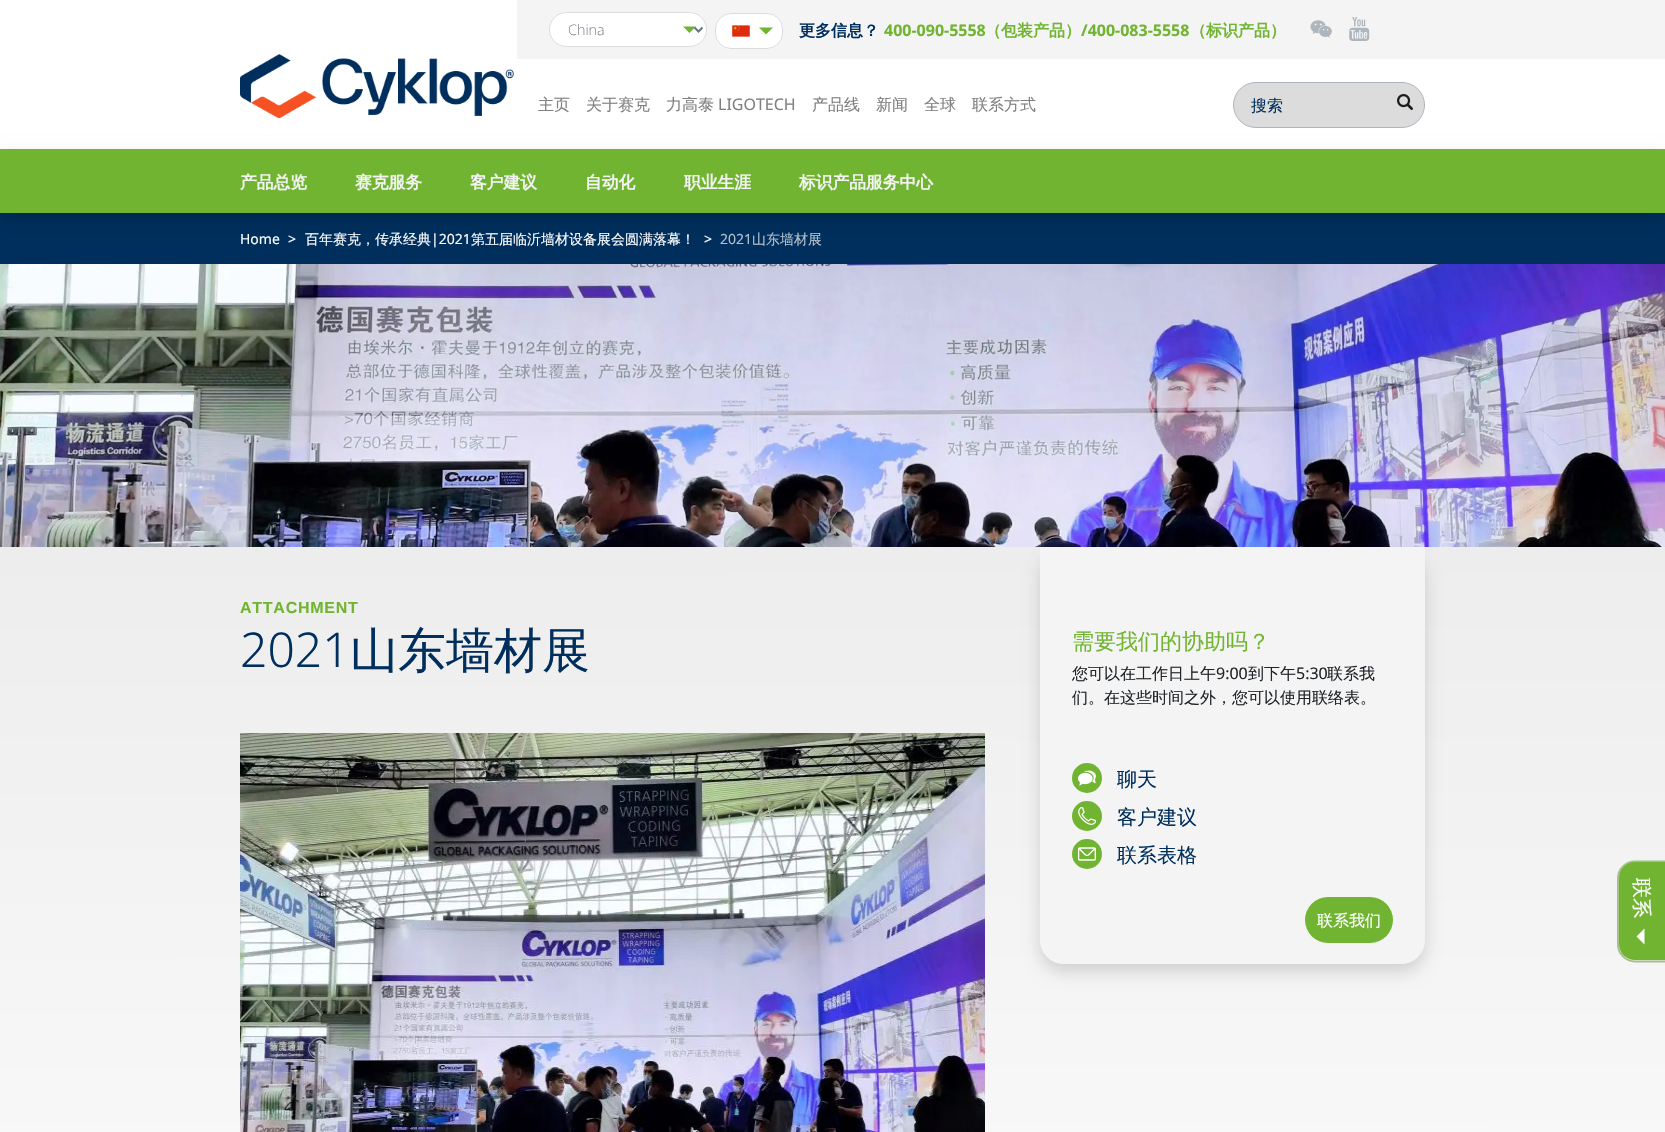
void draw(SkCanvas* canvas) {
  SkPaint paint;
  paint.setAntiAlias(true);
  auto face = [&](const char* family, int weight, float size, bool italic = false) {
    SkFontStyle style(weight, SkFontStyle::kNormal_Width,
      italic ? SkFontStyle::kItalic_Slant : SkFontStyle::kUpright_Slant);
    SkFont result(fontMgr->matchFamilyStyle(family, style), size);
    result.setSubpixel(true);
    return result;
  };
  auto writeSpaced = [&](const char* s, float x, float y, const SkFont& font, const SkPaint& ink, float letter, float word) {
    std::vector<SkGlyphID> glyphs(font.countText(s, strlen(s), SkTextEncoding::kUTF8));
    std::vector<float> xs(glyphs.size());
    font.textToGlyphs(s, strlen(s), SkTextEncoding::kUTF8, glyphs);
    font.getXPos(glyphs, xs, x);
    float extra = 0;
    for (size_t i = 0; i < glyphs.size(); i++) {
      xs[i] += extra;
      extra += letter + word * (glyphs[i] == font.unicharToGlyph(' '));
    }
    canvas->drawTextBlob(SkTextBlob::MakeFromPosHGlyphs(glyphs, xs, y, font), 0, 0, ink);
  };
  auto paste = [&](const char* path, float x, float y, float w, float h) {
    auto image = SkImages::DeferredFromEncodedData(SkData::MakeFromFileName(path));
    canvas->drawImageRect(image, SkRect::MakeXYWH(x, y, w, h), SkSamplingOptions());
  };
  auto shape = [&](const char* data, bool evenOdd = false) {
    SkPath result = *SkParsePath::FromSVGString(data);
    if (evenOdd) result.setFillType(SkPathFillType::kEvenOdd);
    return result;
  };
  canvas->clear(0xffffffff);
  paint.setColor(0xfff4f4f4);
  canvas->drawRect(SkRect::MakeXYWH(517, 0, 1148, 59), paint);
  paint.setColor(0xffffffff);
  canvas->drawRoundRect(SkRect::MakeXYWH(549, 12, 158, 35), 17.5f, 17.5f, paint);
  paint.setColor(0xff70b431);
  canvas->drawPath(shape("M683 26.5H696L689.5 33Z"), paint);
  paint.setStroke(true);
  paint.setStrokeWidth(1);
  paint.setColor(0xffdcdcdc);
  canvas->drawRoundRect(SkRect::MakeXYWH(549.5f, 12.5f, 157, 34), 17, 17, paint);
  paint.setStrokeWidth(2);
  paint.setColor(0xff6c757d);
  canvas->drawPath(shape("M694.5 27.5L698.5 31.5L702.5 27.5"), paint);
  paint.setStroke(false);
  paint.setColor(0xffffffff);
  canvas->drawRoundRect(SkRect::MakeXYWH(715, 13, 68, 36), 16, 16, paint);
  paint.setColor(0xff70b431);
  canvas->drawPath(shape("M759 27.5H773L766 34.5Z"), paint);
  paint.setStroke(true);
  paint.setStrokeWidth(1);
  paint.setColor(0xffdcdcdc);
  canvas->drawRoundRect(SkRect::MakeXYWH(715.5f, 13.5f, 67, 35), 15.5f, 15.5f, paint);
  paste("img/1.png", 732, 25, 18, 12);
  paste("img/2.png", 1310, 20, 22, 18);
  paste("img/3.png", 1349, 17, 21, 24);
  paste("img/4.png", 240, 54, 274, 64);
  paint.setStroke(false);
  canvas->drawRoundRect(SkRect::MakeXYWH(1233.5f, 82.5f, 191, 45), 22.5f, 22.5f, paint);
  paint.setStroke(true);
  paint.setColor(0xffadb5bd);
  canvas->drawRoundRect(SkRect::MakeXYWH(1233.5f, 82.5f, 191, 45), 22.5f, 22.5f, paint);
  paste("img/5.png", 1397, 94, 16, 16);
  paint.setStroke(false);
  paint.setColor(0xff002f5d);
  canvas->drawRect(SkRect::MakeXYWH(0, 213, 1665, 51), paint);
  paint.setColor(0x26000000);
  paint.setMaskFilter(SkMaskFilter::MakeBlur(kNormal_SkBlurStyle, 8));
  canvas->drawRect(SkRect::MakeXYWH(0, 157, 1665, 64), paint);
  paint.setMaskFilter(nullptr);
  paint.setColor(0xff70b431);
  canvas->drawRect(SkRect::MakeXYWH(0, 149, 1665, 64), paint);
  paste("img/6.png", 0, 264, 1665, 283);
  {
    const SkColor colors[] = {0xffededed, 0xffffffff};
    const float stops[] = {0, 1};
    const SkPoint ends[] = {{832, 547}, {833, 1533}};
    paint.setShader(SkGradientShader::MakeLinear(ends, colors, stops, 2, SkTileMode::kClamp));
    paint.setAlpha(255);
  }
  canvas->drawRect(SkRect::MakeXYWH(0, 547, 1665, 585), paint);
  paste("img/7.png", 240, 733, 745, 399);
  paint.setShader(nullptr);
  paint.setColor(0x26000000);
  paint.setMaskFilter(SkMaskFilter::MakeBlur(kNormal_SkBlurStyle, 8));
  canvas->drawRoundRect(SkRect::MakeXYWH(1040, 555, 385, 417), 24, 24, paint);
  paint.setMaskFilter(nullptr);
  paint.setColor(0xfff4f4f4);
  canvas->drawPath(shape("M1040 547H1425V940C1425 953.5 1414.5 964 1401 964H1064C1050.5 964 1040 953.5 1040 940Z"), paint);
  paint.setColor(0xff70b431);
  canvas->drawCircle(1087, 778, 12, paint);
  paint.setStroke(true);
  paint.setStrokeWidth(6);
  canvas->drawCircle(1087, 778, 12, paint);
  paste("img/8.png", 1078, 770, 18, 16);
  paint.setStroke(false);
  canvas->drawCircle(1087, 816, 12, paint);
  paint.setStroke(true);
  canvas->drawCircle(1087, 816, 12, paint);
  paste("img/9.png", 1078, 807, 18, 18);
  paint.setStroke(false);
  canvas->drawCircle(1087, 854, 12, paint);
  paint.setStroke(true);
  canvas->drawCircle(1087, 854, 12, paint);
  paste("img/10.png", 1078, 847, 18, 14);
  paint.setStroke(false);
  canvas->drawRoundRect(SkRect::MakeXYWH(1305, 897, 88, 46), 23, 23, paint);
  paint.setStroke(true);
  paint.setStrokeWidth(2);
  paint.setColor(0xffa5c08d);
  canvas->drawPath(shape("M1618 944.5V878.5C1618 869 1625.5 861.5 1635 861.5H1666V961.5H1635C1625.5 961.5 1618 953.5 1618 944.5Z"), paint);
  paint.setStroke(false);
  paint.setColor(0xff70b431);
  canvas->drawPath(shape("M1619 944V878C1619 869 1626 862 1635 862H1665V960H1635C1626 960 1619 953 1619 944Z"), paint);
  paint.setColor(0xffffffff);
  canvas->drawPath(shape("M1644.5 928.5V944.5L1636.5 936.5Z"), paint);
  auto f0 = face("Noto Sans", 200, 14.5f);
  paint.setColor(0xff6c757d);
  canvas->drawString("China", 568, 35, f0, paint);
  auto f1 = face("WenQuanYi Zen Hei", 700, 16);
  paint.setColor(0xff002f5d);
  canvas->drawString("更多信息？", 799, 36, f1, paint);
  auto f2 = face("Noto Sans", 700, 16);
  paint.setColor(0xff70b431);
  canvas->drawString("400-090-5558", 884, 36, f2, paint);
  canvas->drawString("（包装产品）", 985, 36, f1, paint);
  canvas->drawString("/400-083-5558", 1081, 36, f2, paint);
  canvas->drawString("（标识产品）", 1190, 36, f1, paint);
  auto f3 = face("WenQuanYi Zen Hei", 500, 16);
  paint.setColor(0xff808080);
  {
    const struct { const char* s; float x, y; } items[] = {
      {"主页", 538, 110},
      {"关于赛克", 586, 110},
      {"力高泰", 666, 110},
    };
    for (auto [s, x, y] : items) {
      canvas->drawString(s, x, y, f3, paint);
    }
  }
  auto f4 = face("Noto Sans", 400, 16);
  canvas->drawString("LIGOTECH", 718, 110, f4, paint);
  {
    const struct { const char* s; float x, y; } items[] = {
      {"产品线", 812, 110},
      {"新闻", 876, 110},
      {"全球", 924, 110},
      {"联系方式", 972, 110},
    };
    for (auto [s, x, y] : items) {
      canvas->drawString(s, x, y, f3, paint);
    }
  }
  paint.setColor(0xff002f5d);
  canvas->drawString("搜索", 1251, 111, f3, paint);
  auto f5 = face("WenQuanYi Zen Hei", 700, 16.75f);
  paint.setColor(0xfff4f4f4);
  {
    const struct { const char* s; float x, y; } items[] = {
      {"产品总览", 240, 188},
      {"赛克服务", 355, 188},
      {"客户建议", 470, 188},
      {"自动化", 585, 188},
      {"职业生涯", 684, 188},
      {"标识产品服务中心", 799, 188},
    };
    for (auto [s, x, y] : items) {
      canvas->drawString(s, x, y, f5, paint);
    }
  }
  auto f6 = face("Noto Sans", 400, 14);
  paint.setColor(0xffffffff);
  canvas->drawString("Home", 240, 244, f6, paint);
  canvas->drawString(">", 288, 244, f6, paint);
  auto f7 = face("WenQuanYi Zen Hei", 500, 14);
  canvas->drawString("百年赛克，传承经典", 305, 244, f7, paint);
  canvas->drawString("|2021", 431, 244, f6, paint);
  canvas->drawString("第五届临沂墙材设备展会圆满落幕！", 471, 244, f7, paint);
  canvas->drawString(">", 704, 244, f6, paint);
  paint.setColor(0xffb3c1ce);
  canvas->drawString("2021", 720, 244, f6, paint);
  canvas->drawString("山东墙材展", 752, 244, f7, paint);
  auto f8 = face("Liberation Sans", 700, 16);
  paint.setColor(0xff70b431);
  writeSpaced("ATTACHMENT", 240, 613, f8, paint, 0.75f, 0);
  auto f9 = face("Noto Sans", 300, 48);
  paint.setColor(0xff002f5d);
  canvas->drawString("2021", 240, 667, f9, paint);
  auto f10 = face("WenQuanYi Zen Hei", 500, 48);
  canvas->drawString("山东墙材展", 350, 667, f10, paint);
  auto f11 = face("WenQuanYi Zen Hei", 500, 22);
  paint.setColor(0xff70b431);
  canvas->drawString("需要我们的协助吗？", 1072, 649, f11, paint);
  paint.setColor(0xff212529);
  canvas->drawString("您可以在工作日上午", 1072, 679, f3, paint);
  canvas->drawString("9:00", 1216, 679, f4, paint);
  canvas->drawString("到下午", 1248, 679, f3, paint);
  canvas->drawString("5:30", 1296, 679, f4, paint);
  canvas->drawString("联系我", 1327, 679, f3, paint);
  canvas->drawString("们。在这些时间之外，您可以使用联络表。", 1072, 703, f3, paint);
  auto f12 = face("WenQuanYi Zen Hei", 500, 20);
  paint.setColor(0xff002f5d);
  {
    const struct { const char* s; float x, y; } items[] = {
      {"聊天", 1117, 786},
      {"客户建议", 1117, 824},
      {"联系表格", 1117, 862},
    };
    for (auto [s, x, y] : items) {
      canvas->drawString(s, x, y, f12, paint);
    }
  }
  paint.setColor(0xffffffff);
  canvas->drawString("联系我们", 1317, 926, f3, paint);
  canvas->save();
  canvas->rotate(90, 1635, 878);
  canvas->drawString("联系", 1635, 878, f12, paint);
  canvas->restore();
}
